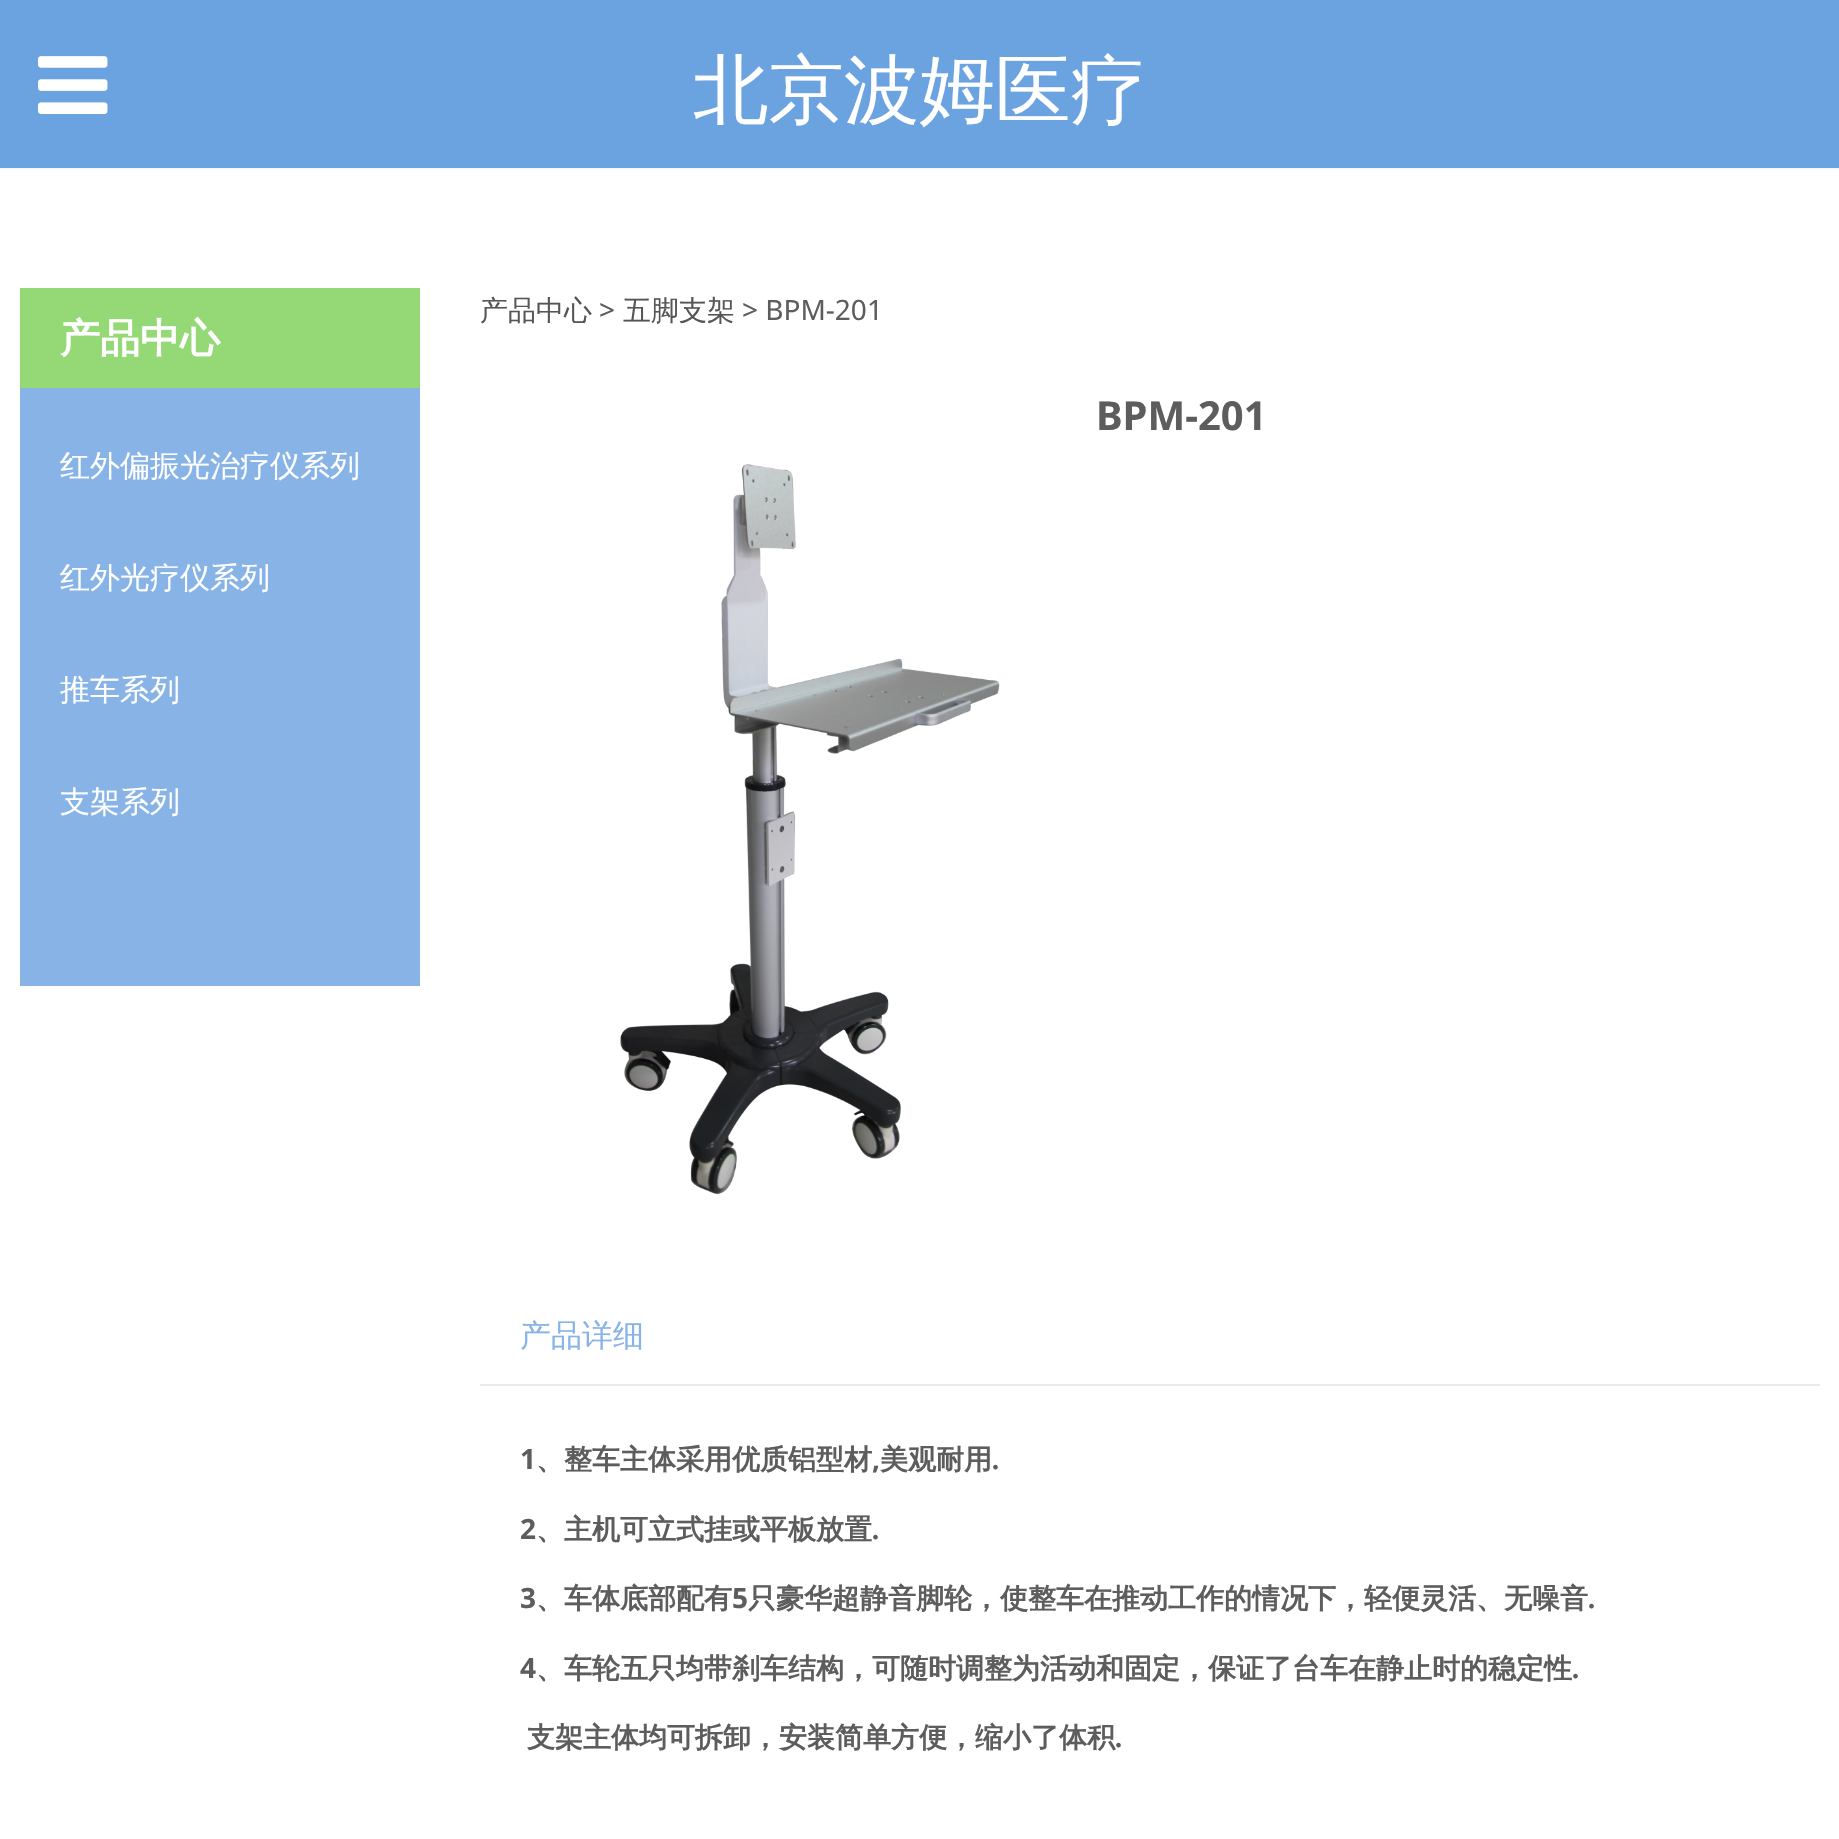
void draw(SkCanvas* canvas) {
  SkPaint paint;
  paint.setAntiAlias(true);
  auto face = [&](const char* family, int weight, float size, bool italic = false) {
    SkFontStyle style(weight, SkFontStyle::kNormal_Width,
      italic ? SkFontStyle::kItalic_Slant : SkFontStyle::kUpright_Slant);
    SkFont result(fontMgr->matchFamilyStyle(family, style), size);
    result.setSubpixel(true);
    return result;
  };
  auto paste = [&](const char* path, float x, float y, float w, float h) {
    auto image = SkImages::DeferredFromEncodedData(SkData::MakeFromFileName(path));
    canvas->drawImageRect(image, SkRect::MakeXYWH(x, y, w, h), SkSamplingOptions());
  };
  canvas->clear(0xffffffff);
  paint.setColor(0x1a000000);
  paint.setMaskFilter(SkMaskFilter::MakeBlur(kNormal_SkBlurStyle, 1));
  canvas->drawRect(SkRect::MakeXYWH(0, 0, 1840, 168), paint);
  paint.setMaskFilter(nullptr);
  paint.setColor(0xff6ba3e0);
  canvas->drawRect(SkRect::MakeXYWH(0, 0, 1839, 168), paint);
  paste("img/1.png", 38, 56, 70, 58);
  paint.setColor(0xff87b3e6);
  canvas->drawRect(SkRect::MakeXYWH(20, 388, 400, 598), paint);
  paint.setColor(0xff95d976);
  canvas->drawRect(SkRect::MakeXYWH(20, 288, 400, 100), paint);
  paste("img/2.png", 620, 464, 380, 731);
  paint.setColor(0xffebebeb);
  canvas->drawRect(SkRect::MakeXYWH(480, 1384, 1340, 2), paint);
  auto f0 = face("WenQuanYi Zen Hei", 500, 75.5f);
  paint.setColor(0xffffffff);
  canvas->drawString("北京波姆医疗", 693, 116, f0, paint);
  auto f1 = face("WenQuanYi Zen Hei", 700, 40);
  canvas->drawString("产品中心", 60, 352, f1, paint);
  auto f2 = face("WenQuanYi Zen Hei", 500, 30);
  {
    const struct { const char* s; float x, y; } items[] = {
      {"红外偏振光治疗仪系列", 60, 476},
      {"红外光疗仪系列", 60, 588},
      {"推车系列", 60, 700},
      {"支架系列", 60, 812},
    };
    for (auto [s, x, y] : items) {
      canvas->drawString(s, x, y, f2, paint);
    }
  }
  auto f3 = face("WenQuanYi Zen Hei", 500, 28);
  paint.setColor(0xff565656);
  canvas->drawString("产品中心", 480, 320, f3, paint);
  auto f4 = face("Noto Sans", 400, 28);
  paint.setColor(0xff5d5d5d);
  canvas->drawString(">", 599, 320, f4, paint);
  paint.setColor(0xff565656);
  canvas->drawString("五脚支架", 623, 320, f3, paint);
  paint.setColor(0xff5d5d5d);
  canvas->drawString("> BPM-201", 742, 320, f4, paint);
  auto f5 = face("Noto Sans", 700, 40);
  canvas->drawString("BPM-201", 1096, 430, f5, paint);
  auto f6 = face("WenQuanYi Zen Hei", 500, 31);
  paint.setColor(0xff87b3e6);
  canvas->drawString("产品详细", 520, 1346, f6, paint);
  auto f7 = face("Noto Sans", 700, 28);
  paint.setColor(0xff5d5d5d);
  canvas->drawString("1", 520, 1469, f7, paint);
  auto f8 = face("WenQuanYi Zen Hei", 700, 28);
  canvas->drawString("、整车主体采用优质铝型材", 536, 1469, f8, paint);
  canvas->drawString(",", 872, 1469, f7, paint);
  canvas->drawString("美观耐用", 880, 1469, f8, paint);
  auto f9 = face("Liberation Serif", 700, 28);
  canvas->drawString(".", 992, 1469, f9, paint);
  canvas->drawString("2", 520, 1539, f7, paint);
  canvas->drawString("、主机可立式挂或平板放置", 536, 1539, f8, paint);
  canvas->drawString(".", 872, 1539, f9, paint);
  canvas->drawString("3", 520, 1608, f7, paint);
  canvas->drawString("、车体底部配有", 536, 1608, f8, paint);
  canvas->drawString("5", 732, 1608, f7, paint);
  canvas->drawString("只豪华超静音脚轮，使整车在推动工作的情况下，轻便灵活、无噪音", 748, 1608, f8, paint);
  canvas->drawString(".", 1588, 1608, f9, paint);
  canvas->drawString("4", 520, 1678, f7, paint);
  canvas->drawString("、车轮五只均带刹车结构，可随时调整为活动和固定，保证了台车在静止时的稳定性", 536, 1678, f8, paint);
  canvas->drawString(".", 1572, 1678, f9, paint);
  canvas->drawString("支架主体均可拆卸，安装简单方便，缩小了体积", 527, 1747, f8, paint);
  canvas->drawString(".", 1115, 1747, f9, paint);
}
